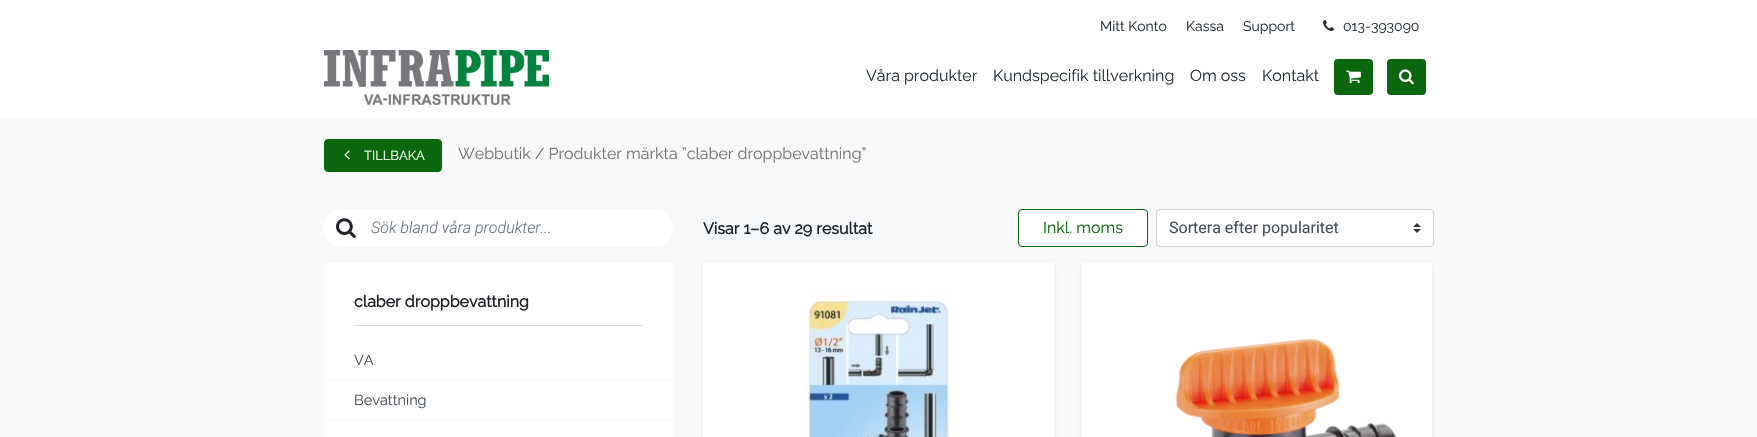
void draw(SkCanvas* canvas) {
  SkPaint paint;
  paint.setAntiAlias(true);
  auto face = [&](const char* family, int weight, float size, bool italic = false) {
    SkFontStyle style(weight, SkFontStyle::kNormal_Width,
      italic ? SkFontStyle::kItalic_Slant : SkFontStyle::kUpright_Slant);
    SkFont result(fontMgr->matchFamilyStyle(family, style), size);
    result.setSubpixel(true);
    return result;
  };
  auto paste = [&](const char* path, float x, float y, float w, float h) {
    auto image = SkImages::DeferredFromEncodedData(SkData::MakeFromFileName(path));
    canvas->drawImageRect(image, SkRect::MakeXYWH(x, y, w, h), SkSamplingOptions());
  };
  canvas->clear(0xffffffff);
  paste("img/1.png", 1323, 20, 11, 11);
  paste("img/2.png", 324, 50, 225, 55);
  paint.setColor(0xff0b670e);
  canvas->drawRoundRect(SkRect::MakeXYWH(1334, 59, 39, 36), 4, 4, paint);
  paste("img/3.png", 1346, 70, 15, 14);
  canvas->drawRoundRect(SkRect::MakeXYWH(1387, 59, 39, 36), 4, 4, paint);
  paste("img/4.png", 1399, 69, 15, 16);
  paint.setColor(0xfff8f9fa);
  canvas->drawRect(SkRect::MakeXYWH(0, 118, 1757, 319), paint);
  paint.setColor(0xff0b670e);
  canvas->drawRoundRect(SkRect::MakeXYWH(324.5f, 139.5f, 117, 32), 3.5f, 3.5f, paint);
  paint.setStroke(true);
  paint.setStrokeWidth(1);
  canvas->drawRoundRect(SkRect::MakeXYWH(324.5f, 139.5f, 117, 32), 3.5f, 3.5f, paint);
  paste("img/5.png", 344, 150, 6, 10);
  paint.setStroke(false);
  paint.setColor(0xffffffff);
  canvas->drawRoundRect(SkRect::MakeXYWH(323, 209, 350, 38), 19, 19, paint);
  paste("img/6.png", 336, 218, 20, 20);
  {
    const struct { float x, y, w, h; SkColor color; } items[] = {
      {324, 263, 349, 174, 0xffffffff},
      {354, 325, 289, 1, 0xffdddddd},
      {324, 380, 349, 1, 0xfff7f8fa},
      {324, 419, 349, 1, 0xfff7f8fa},
    };
    for (auto [x, y, w, h, color] : items) {
      paint.setColor(color);
      canvas->drawRect(SkRect::MakeXYWH(x, y, w, h), paint);
    }
  }
  paint.setColor(0xffffffff);
  canvas->drawRoundRect(SkRect::MakeXYWH(1018.5f, 209.5f, 129, 37), 3.5f, 3.5f, paint);
  paint.setStroke(true);
  paint.setColor(0xff0b670e);
  canvas->drawRoundRect(SkRect::MakeXYWH(1018.5f, 209.5f, 129, 37), 3.5f, 3.5f, paint);
  paint.setStroke(false);
  paint.setColor(0xffffffff);
  canvas->drawRoundRect(SkRect::MakeXYWH(1156, 209, 278, 38), 4, 4, paint);
  paste("img/7.png", 1413, 223, 8, 10);
  paint.setStroke(true);
  paint.setColor(0xffced4da);
  canvas->drawRoundRect(SkRect::MakeXYWH(1156.5f, 209.5f, 277, 37), 3.5f, 3.5f, paint);
  paint.setStroke(false);
  paint.setColor(0x12000000);
  paint.setMaskFilter(SkMaskFilter::MakeBlur(kNormal_SkBlurStyle, 2));
  canvas->drawRect(SkRect::MakeXYWH(703, 265, 351, 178), paint);
  paint.setMaskFilter(nullptr);
  paint.setColor(0xffffffff);
  canvas->drawRect(SkRect::MakeXYWH(703, 263, 351, 174), paint);
  paste("img/8.png", 803, 293, 148, 144);
  paint.setColor(0x12000000);
  paint.setMaskFilter(SkMaskFilter::MakeBlur(kNormal_SkBlurStyle, 2));
  canvas->drawRect(SkRect::MakeXYWH(1082, 265, 350, 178), paint);
  paint.setMaskFilter(nullptr);
  paint.setColor(0xffffffff);
  canvas->drawRect(SkRect::MakeXYWH(1082, 263, 350, 174), paint);
  paste("img/9.png", 1175, 338, 222, 99);
  auto f0 = face("Raleway", 100, 14);
  paint.setColor(0xff283136);
  {
    const struct { const char* s; float x, y; } items[] = {
      {"Mitt Konto", 1100, 31},
      {"Kassa", 1186, 31},
      {"Support", 1243, 31},
      {"013-393090", 1343, 31},
    };
    for (auto [s, x, y] : items) {
      canvas->drawString(s, x, y, f0, paint);
    }
  }
  auto f1 = face("Raleway", 100, 16);
  {
    const struct { const char* s; float x, y; } items[] = {
      {"Våra produkter", 866, 81},
      {"Kundspecifik tillverkning", 993, 81},
      {"Om oss", 1190, 81},
      {"Kontakt", 1262, 81},
    };
    for (auto [s, x, y] : items) {
      canvas->drawString(s, x, y, f1, paint);
    }
  }
  auto f2 = face("Raleway", 100, 13);
  paint.setColor(0xffffffff);
  canvas->drawString("TILLBAKA", 364, 160, f2, paint);
  paint.setColor(0xff767676);
  canvas->drawString("Webbutik / Produkter märkta ”claber droppbevattning”", 458, 159, f1, paint);
  auto f3 = face("Roboto", 300, 16, true);
  paint.setColor(0xff6c757d);
  canvas->drawString("Sök bland våra produkter...", 371, 233, f3, paint);
  auto f4 = face("Raleway", 700, 16);
  paint.setColor(0xff212529);
  canvas->drawString("claber droppbevattning", 354, 307, f4, paint);
  auto f5 = face("Raleway", 100, 14.5f);
  paint.setColor(0xff495057);
  canvas->drawString("VA", 354, 365, f5, paint);
  canvas->drawString("Bevattning", 354, 405, f5, paint);
  paint.setColor(0xff212529);
  canvas->drawString("Visar 1–6 av 29 resultat", 703, 234, f4, paint);
  paint.setColor(0xff0b670e);
  canvas->drawString("Inkl. moms", 1043, 233, f1, paint);
  auto f6 = face("Roboto", 400, 16);
  paint.setColor(0xff495057);
  canvas->drawString("Sortera efter popularitet", 1169, 233, f6, paint);
}
